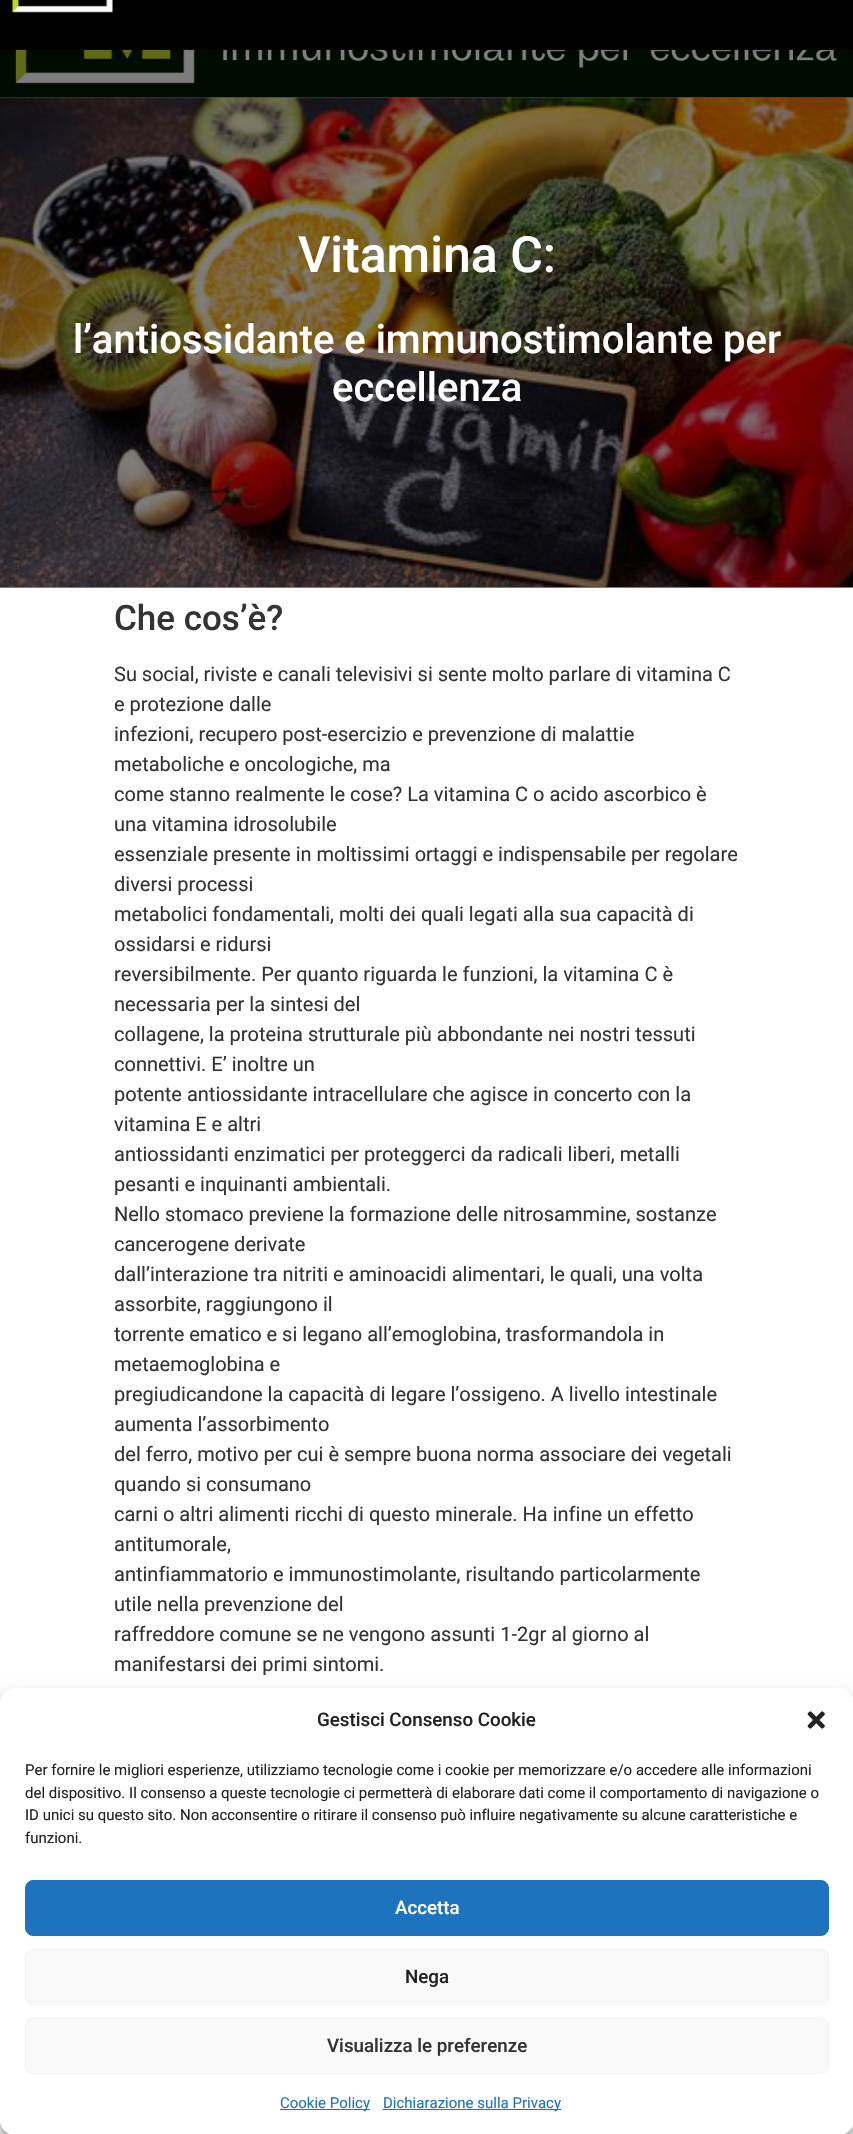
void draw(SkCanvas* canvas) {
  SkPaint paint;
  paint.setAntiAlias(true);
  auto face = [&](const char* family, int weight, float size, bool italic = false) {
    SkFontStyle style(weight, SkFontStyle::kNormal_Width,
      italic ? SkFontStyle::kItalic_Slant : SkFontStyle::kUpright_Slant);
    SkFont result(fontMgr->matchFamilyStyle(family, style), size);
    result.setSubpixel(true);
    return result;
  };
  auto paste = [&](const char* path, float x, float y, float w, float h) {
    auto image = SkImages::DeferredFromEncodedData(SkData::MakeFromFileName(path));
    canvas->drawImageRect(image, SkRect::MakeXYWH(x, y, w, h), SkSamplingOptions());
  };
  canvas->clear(0xffffffff);
  paint.setColor(0xff808080);
  canvas->drawRect(SkRect::MakeXYWH(0, 587, 853, 1), paint);
  paint.setColor(0xff000000);
  canvas->drawRect(SkRect::MakeXYWH(0, 0, 853, 50), paint);
  paste("img/1.png", 12, 0, 101, 13);
  paste("img/2.png", 0, 49, 853, 539);
  paint.setColor(0x3b000000);
  paint.setMaskFilter(SkMaskFilter::MakeBlur(kNormal_SkBlurStyle, 4));
  canvas->drawRoundRect(SkRect::MakeXYWH(0, 1695, 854, 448), 15, 15, paint);
  paint.setMaskFilter(nullptr);
  paint.setColor(0x30000000);
  paint.setMaskFilter(SkMaskFilter::MakeBlur(kNormal_SkBlurStyle, 12.5f));
  canvas->drawRoundRect(SkRect::MakeXYWH(0, 1700, 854, 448), 15, 15, paint);
  paint.setMaskFilter(nullptr);
  paint.setColor(0xffffffff);
  canvas->drawRoundRect(SkRect::MakeXYWH(0, 1688, 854, 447), 15, 15, paint);
  paste("img/3.png", 807, 1711, 18, 18);
  paint.setColor(0xff1e73be);
  canvas->drawRoundRect(SkRect::MakeXYWH(25.5f, 1880.5f, 803, 55), 7.5f, 7.5f, paint);
  paint.setStroke(true);
  paint.setStrokeWidth(1);
  canvas->drawRoundRect(SkRect::MakeXYWH(25.5f, 1880.5f, 803, 55), 7.5f, 7.5f, paint);
  paint.setStroke(false);
  paint.setColor(0xfff9f9f9);
  canvas->drawRoundRect(SkRect::MakeXYWH(25.5f, 1949.5f, 803, 55), 7.5f, 7.5f, paint);
  paint.setStroke(true);
  paint.setColor(0xfff2f2f2);
  canvas->drawRoundRect(SkRect::MakeXYWH(25.5f, 1949.5f, 803, 55), 7.5f, 7.5f, paint);
  paint.setStroke(false);
  paint.setColor(0xfff9f9f9);
  canvas->drawRoundRect(SkRect::MakeXYWH(25.5f, 2018.5f, 803, 55), 7.5f, 7.5f, paint);
  paint.setStroke(true);
  paint.setColor(0xfff2f2f2);
  canvas->drawRoundRect(SkRect::MakeXYWH(25.5f, 2018.5f, 803, 55), 7.5f, 7.5f, paint);
  paint.setStroke(false);
  paint.setColor(0xff1e73be);
  canvas->drawRect(SkRect::MakeXYWH(280, 2109, 90, 1), paint);
  canvas->drawRect(SkRect::MakeXYWH(383, 2109, 178, 1), paint);
  auto f0 = face("Roboto", 500, 50);
  paint.setColor(0xffffffff);
  canvas->drawString("Vitamina C:", 298, 272, f0, paint);
  auto f1 = face("Roboto", 500, 40);
  canvas->drawString("l’antiossidante e immunostimolante per", 73, 353, f1, paint);
  canvas->drawString("eccellenza", 332, 401, f1, paint);
  auto f2 = face("Roboto", 500, 35);
  paint.setColor(0xff333333);
  canvas->drawString("Che cos’è?", 114, 630, f2, paint);
  auto f3 = face("Roboto", 400, 20);
  {
    const struct { const char* s; float x, y; } items[] = {
      {"Su social, riviste e canali televisivi si sente molto parlare di vitamina C", 114, 681},
      {"e protezione dalle", 114, 711},
      {"infezioni, recupero post-esercizio e prevenzione di malattie", 114, 741},
      {"metaboliche e oncologiche, ma", 114, 771},
      {"come stanno realmente le cose? La vitamina C o acido ascorbico è", 114, 801},
      {"una vitamina idrosolubile", 114, 831},
      {"essenziale presente in moltissimi ortaggi e indispensabile per regolare", 114, 861},
      {"diversi processi", 114, 891},
      {"metabolici fondamentali, molti dei quali legati alla sua capacità di", 114, 921},
      {"ossidarsi e ridursi", 114, 951},
      {"reversibilmente. Per quanto riguarda le funzioni, la vitamina C è", 114, 981},
      {"necessaria per la sintesi del", 114, 1011},
      {"collagene, la proteina strutturale più abbondante nei nostri tessuti", 114, 1041},
      {"connettivi. E’ inoltre un", 114, 1071},
      {"potente antiossidante intracellulare che agisce in concerto con la", 114, 1101},
      {"vitamina E e altri", 114, 1131},
      {"antiossidanti enzimatici per proteggerci da radicali liberi, metalli", 114, 1161},
      {"pesanti e inquinanti ambientali.", 114, 1191},
      {"Nello stomaco previene la formazione delle nitrosammine, sostanze", 114, 1221},
      {"cancerogene derivate", 114, 1251},
      {"dall’interazione tra nitriti e aminoacidi alimentari, le quali, una volta", 114, 1281},
      {"assorbite, raggiungono il", 114, 1311},
      {"torrente ematico e si legano all’emoglobina, trasformandola in", 114, 1341},
      {"metaemoglobina e", 114, 1371},
      {"pregiudicandone la capacità di legare l’ossigeno. A livello intestinale", 114, 1401},
      {"aumenta l’assorbimento", 114, 1431},
      {"del ferro, motivo per cui è sempre buona norma associare dei vegetali", 114, 1461},
      {"quando si consumano", 114, 1491},
      {"carni o altri alimenti ricchi di questo minerale. Ha infine un effetto", 114, 1521},
      {"antitumorale,", 114, 1551},
      {"antinfiammatorio e immunostimolante, risultando particolarmente", 114, 1581},
      {"utile nella prevenzione del", 114, 1611},
      {"raffreddore comune se ne vengono assunti 1-2gr al giorno al", 114, 1641},
      {"manifestarsi dei primi sintomi.", 114, 1671},
    };
    for (auto [s, x, y] : items) {
      canvas->drawString(s, x, y, f3, paint);
    }
  }
  auto f4 = face("Roboto", 500, 18.75f);
  paint.setColor(0xff222222);
  canvas->drawString("Gestisci Consenso Cookie", 317, 1726, f4, paint);
  auto f5 = face("Roboto", 400, 15);
  {
    const struct { const char* s; float x, y; } items[] = {
      {"Per fornire le migliori esperienze, utilizziamo tecnologie come i cookie per memorizzare e/o accedere alle informazioni", 25, 1775},
      {"del dispositivo. Il consenso a queste tecnologie ci permetterà di elaborare dati come il comportamento di navigazione o", 25, 1798},
      {"ID unici su questo sito. Non acconsentire o ritirare il consenso può influire negativamente su alcune caratteristiche e", 25, 1820},
      {"funzioni.", 25, 1843},
    };
    for (auto [s, x, y] : items) {
      canvas->drawString(s, x, y, f5, paint);
    }
  }
  paint.setColor(0xffffffff);
  canvas->drawString("Accetta", 395, 1914, f4, paint);
  paint.setColor(0xff222222);
  canvas->drawString("Nega", 405, 1983, f4, paint);
  paint.setColor(0xff333333);
  canvas->drawString("Visualizza le preferenze", 327, 2052, f4, paint);
  paint.setColor(0xff1e73be);
  canvas->drawString("Cookie Policy", 280, 2108, f5, paint);
  canvas->drawString("Dichiarazione sulla Privacy", 383, 2108, f5, paint);
}
